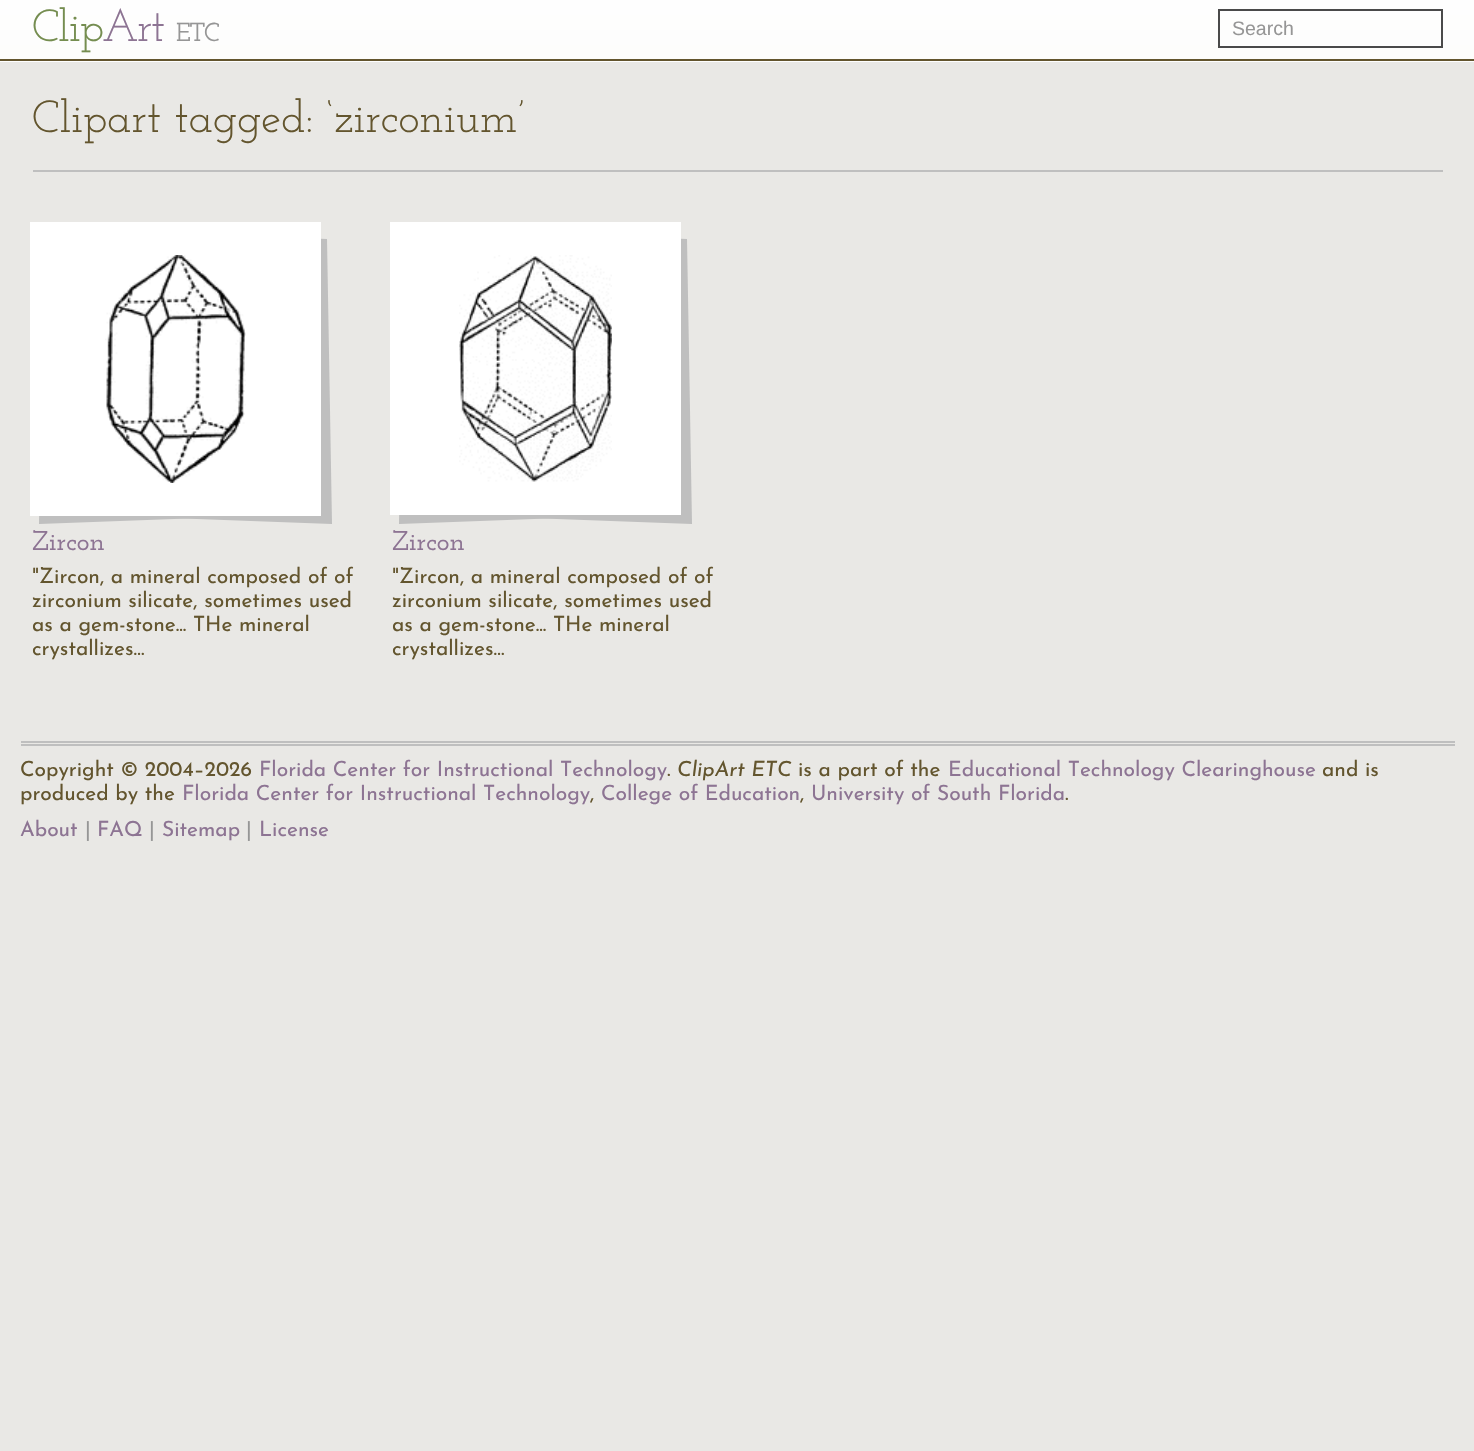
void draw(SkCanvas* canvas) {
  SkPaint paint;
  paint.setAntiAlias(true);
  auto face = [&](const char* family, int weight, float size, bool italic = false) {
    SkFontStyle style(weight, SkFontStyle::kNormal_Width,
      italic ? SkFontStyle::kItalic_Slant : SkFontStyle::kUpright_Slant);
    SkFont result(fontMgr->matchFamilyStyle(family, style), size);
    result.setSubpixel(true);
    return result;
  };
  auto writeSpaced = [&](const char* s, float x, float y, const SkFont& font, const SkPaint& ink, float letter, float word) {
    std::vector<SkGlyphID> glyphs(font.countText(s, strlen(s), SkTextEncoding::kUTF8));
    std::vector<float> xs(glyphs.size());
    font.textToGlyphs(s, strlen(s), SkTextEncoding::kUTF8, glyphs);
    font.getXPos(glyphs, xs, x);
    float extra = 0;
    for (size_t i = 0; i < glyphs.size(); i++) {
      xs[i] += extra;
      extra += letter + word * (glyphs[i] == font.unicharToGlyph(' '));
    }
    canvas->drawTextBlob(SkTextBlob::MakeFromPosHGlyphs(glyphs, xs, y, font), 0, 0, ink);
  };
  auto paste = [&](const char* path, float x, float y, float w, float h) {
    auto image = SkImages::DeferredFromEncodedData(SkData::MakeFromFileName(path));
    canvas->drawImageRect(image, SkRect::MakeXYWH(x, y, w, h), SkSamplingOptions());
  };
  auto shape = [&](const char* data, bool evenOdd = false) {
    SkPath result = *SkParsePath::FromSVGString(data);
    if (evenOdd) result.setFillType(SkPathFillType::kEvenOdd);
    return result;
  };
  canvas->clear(0xffe9e8e5);
  paint.setColor(0xffffffff);
  canvas->drawPath(shape("M0 60V62H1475V2H1474V60Z"), paint);
  {
    const SkColor colors[] = {0xfffefefe, 0xfffdfdfc};
    const float stops[] = {0, 1};
    const SkPoint ends[] = {{737, 0}, {737, 60}};
    paint.setShader(SkGradientShader::MakeLinear(ends, colors, stops, 2, SkTileMode::kClamp));
    paint.setAlpha(255);
  }
  canvas->drawRect(SkRect::MakeXYWH(0, 0, 1474, 59), paint);
  paint.setShader(nullptr);
  paint.setColor(0xff63552e);
  canvas->drawRect(SkRect::MakeXYWH(0, 59, 1474, 2), paint);
  paint.setColor(0xffffffff);
  canvas->drawRect(SkRect::MakeXYWH(1220, 45, 221, 1), paint);
  paint.setStroke(true);
  paint.setStrokeWidth(2);
  paint.setColor(0xff4a4a4a);
  canvas->drawRect(SkRect::MakeXYWH(1219, 10, 223, 37), paint);
  paint.setStroke(false);
  paint.setColor(0xffbfbfbf);
  canvas->drawRect(SkRect::MakeXYWH(33, 170, 1410, 2), paint);
  canvas->drawPath(shape("M57 229L327 239L332 524L62 514Z"), paint);
  canvas->drawPath(shape("M44 239L314 229L309 514L39 524Z"), paint);
  paint.setStroke(true);
  paint.setStrokeWidth(3);
  paint.setColor(0xffffffff);
  canvas->drawRect(SkRect::MakeXYWH(31.5f, 223.5f, 288, 291), paint);
  paint.setStroke(false);
  canvas->drawRect(SkRect::MakeXYWH(33, 225, 285, 288), paint);
  paste("img/1.png", 105, 255, 141, 228);
  paint.setColor(0xffbfbfbf);
  canvas->drawPath(shape("M417 229L687 239L692 524L422 514Z"), paint);
  canvas->drawPath(shape("M404 239L674 229L669 514L399 524Z"), paint);
  paint.setStroke(true);
  paint.setColor(0xffffffff);
  canvas->drawRect(SkRect::MakeXYWH(391.5f, 223.5f, 288, 290), paint);
  paint.setStroke(false);
  canvas->drawRect(SkRect::MakeXYWH(393, 225, 285, 287), paint);
  paste("img/2.png", 459, 255, 153, 227);
  paint.setColor(0xffbfbfbf);
  canvas->drawRect(SkRect::MakeXYWH(21, 741, 1434, 2), paint);
  canvas->drawRect(SkRect::MakeXYWH(21, 744, 1434, 2), paint);
  auto f0 = face("Josefin Slab", 400, 45);
  paint.setColor(0xff758d50);
  writeSpaced("Cl", 32, 41, f0, paint, -1.5f, 0);
  writeSpaced("ip", 69, 41, f0, paint, -1, 0);
  paint.setColor(0xff8d7493);
  writeSpaced("Art", 102, 41, f0, paint, -1.5f, 0);
  auto f1 = face("Josefin Slab", 600, 26);
  paint.setColor(0xff969696);
  writeSpaced("ETC", 176, 41, f1, paint, -1.5f, 0);
  auto f2 = face("Liberation Sans", 400, 19.5f);
  canvas->drawString("Search", 1232, 35, f2, paint);
  paint.setColor(0xff63552e);
  canvas->drawString("Clipart tagged: ‘zirconium’", 32, 132, f0, paint);
  auto f3 = face("Josefin Slab", 600, 27);
  paint.setColor(0xff8d7493);
  canvas->drawString("Zircon", 32, 550, f3, paint);
  auto f4 = face("Josefin Sans", 400, 21);
  paint.setColor(0xff63552e);
  {
    const struct { const char* s; float x, y; } items[] = {
      {"\"Zircon, a mineral composed of of", 32, 583},
      {"zirconium silicate, sometimes used", 32, 607},
      {"as a gem-stone... THe mineral", 32, 631},
      {"crystallizes…", 32, 655},
    };
    for (auto [s, x, y] : items) {
      canvas->drawString(s, x, y, f4, paint);
    }
  }
  paint.setColor(0xff8d7493);
  canvas->drawString("Zircon", 392, 550, f3, paint);
  paint.setColor(0xff63552e);
  {
    const struct { const char* s; float x, y; } items[] = {
      {"\"Zircon, a mineral composed of of", 392, 583},
      {"zirconium silicate, sometimes used", 392, 607},
      {"as a gem-stone... THe mineral", 392, 631},
      {"crystallizes…", 392, 655},
      {"Copyright © 2004–2026", 20, 776},
    };
    for (auto [s, x, y] : items) {
      canvas->drawString(s, x, y, f4, paint);
    }
  }
  paint.setColor(0xff8d7493);
  canvas->drawString("Florida Center for Instructional Technology", 259, 776, f4, paint);
  paint.setColor(0xff63552e);
  canvas->drawString(".", 667, 776, f4, paint);
  auto f5 = face("Josefin Sans", 100, 21, true);
  canvas->drawString("ClipArt ETC", 677, 776, f5, paint);
  canvas->drawString("is a part of the", 798, 776, f4, paint);
  paint.setColor(0xff8d7493);
  canvas->drawString("Educational Technology Clearinghouse", 948, 776, f4, paint);
  paint.setColor(0xff63552e);
  canvas->drawString("and is", 1322, 776, f4, paint);
  canvas->drawString("produced by the", 20, 800, f4, paint);
  paint.setColor(0xff8d7493);
  canvas->drawString("Florida Center for Instructional Technology", 182, 800, f4, paint);
  paint.setColor(0xff63552e);
  canvas->drawString(",", 590, 800, f4, paint);
  paint.setColor(0xff8d7493);
  canvas->drawString("College of Education", 601, 800, f4, paint);
  paint.setColor(0xff63552e);
  canvas->drawString(",", 800, 800, f4, paint);
  paint.setColor(0xff8d7493);
  canvas->drawString("University of South Florida", 811, 800, f4, paint);
  paint.setColor(0xff63552e);
  canvas->drawString(".", 1065, 800, f4, paint);
  paint.setColor(0xff8d7493);
  canvas->drawString("About", 20, 836, f4, paint);
  paint.setColor(0xff969696);
  canvas->drawString("|", 85, 836, f4, paint);
  paint.setColor(0xff8d7493);
  canvas->drawString("FAQ", 97, 836, f4, paint);
  paint.setColor(0xff969696);
  canvas->drawString("|", 149, 836, f4, paint);
  paint.setColor(0xff8d7493);
  canvas->drawString("Sitemap", 162, 836, f4, paint);
  paint.setColor(0xff969696);
  canvas->drawString("|", 246, 836, f4, paint);
  paint.setColor(0xff8d7493);
  canvas->drawString("License", 259, 836, f4, paint);
}
